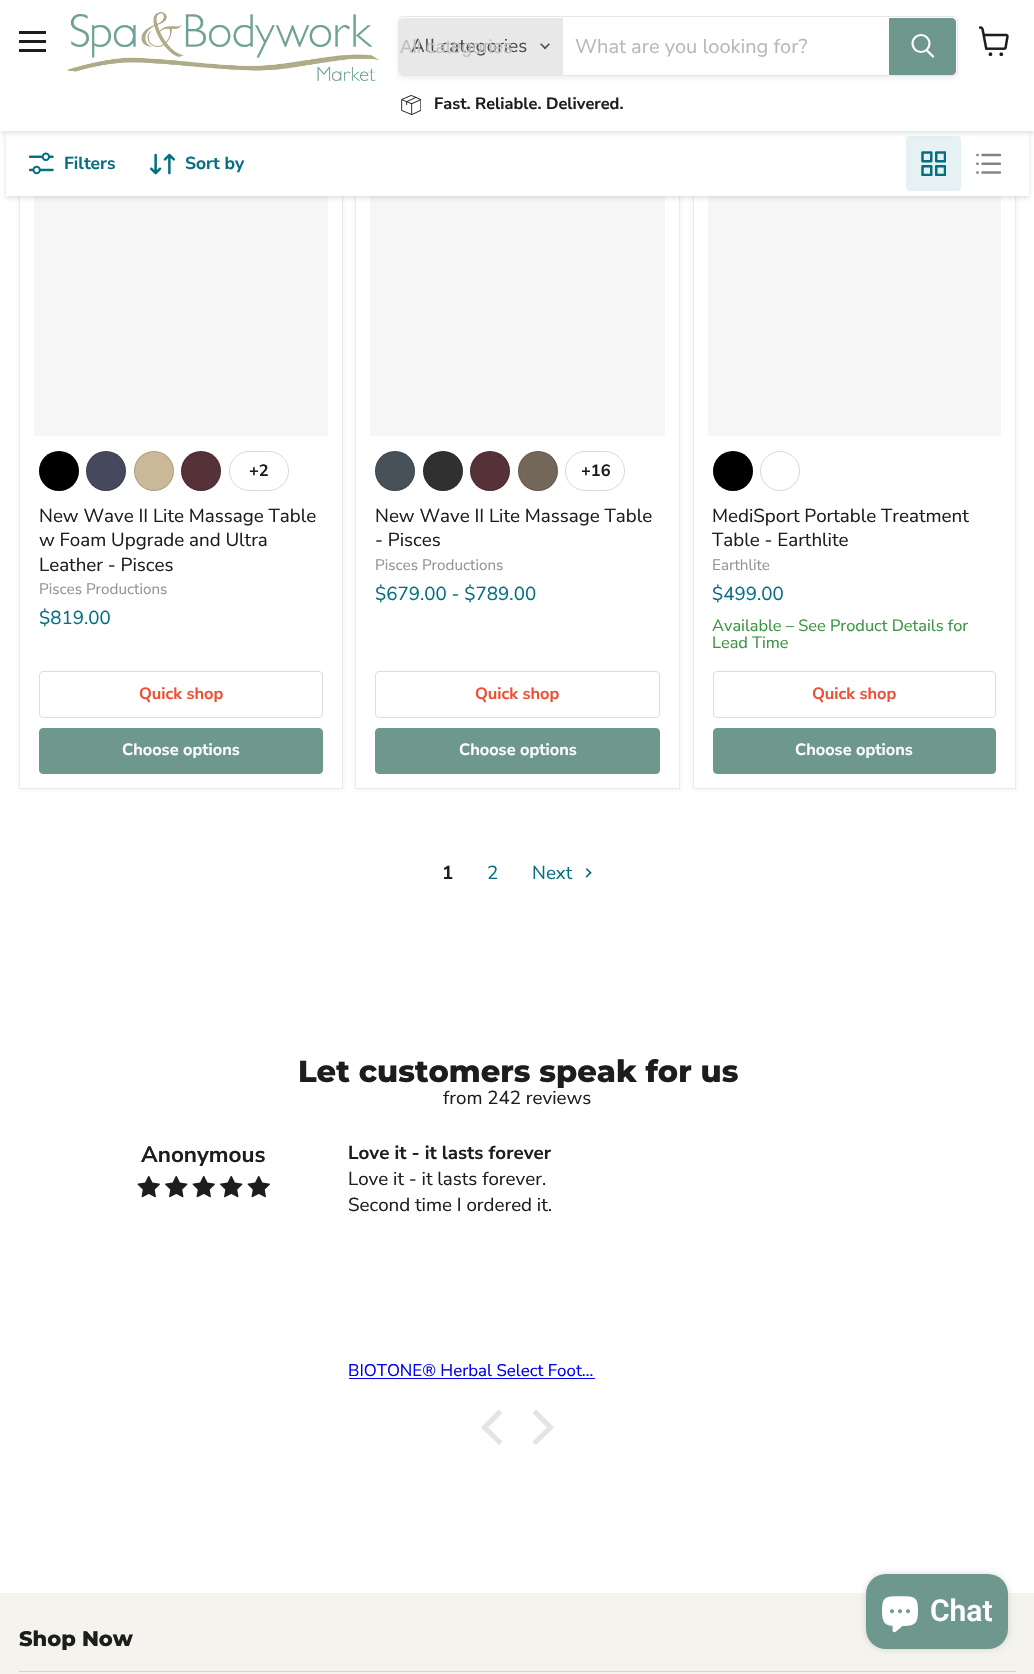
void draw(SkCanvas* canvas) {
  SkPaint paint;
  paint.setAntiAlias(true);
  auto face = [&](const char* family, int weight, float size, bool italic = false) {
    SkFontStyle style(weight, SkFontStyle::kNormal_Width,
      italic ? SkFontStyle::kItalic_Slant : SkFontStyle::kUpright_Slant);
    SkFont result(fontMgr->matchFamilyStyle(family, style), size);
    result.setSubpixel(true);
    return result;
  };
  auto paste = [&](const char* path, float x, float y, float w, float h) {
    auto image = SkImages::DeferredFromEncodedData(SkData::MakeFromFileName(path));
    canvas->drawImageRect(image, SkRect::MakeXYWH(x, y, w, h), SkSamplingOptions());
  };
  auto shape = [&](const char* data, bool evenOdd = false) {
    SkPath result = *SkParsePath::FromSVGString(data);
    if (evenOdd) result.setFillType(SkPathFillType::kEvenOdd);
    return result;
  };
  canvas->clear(0xffffffff);
  paint.setColor(0x1c808080);
  paint.setMaskFilter(SkMaskFilter::MakeBlur(kNormal_SkBlurStyle, 2.5f));
  canvas->drawRect(SkRect::MakeXYWH(19, 129, 324, 661), paint);
  paint.setMaskFilter(nullptr);
  paint.setColor(0xffffffff);
  canvas->drawRect(SkRect::MakeXYWH(20, 196, 322, 592), paint);
  paint.setStroke(true);
  paint.setStrokeWidth(1);
  paint.setColor(0xffebebeb);
  canvas->drawRect(SkRect::MakeXYWH(19.5f, 128.5f, 323, 660), paint);
  paint.setStroke(false);
  paint.setColor(0xfff6f6f6);
  canvas->drawRect(SkRect::MakeXYWH(34, 196, 294, 240), paint);
  paint.setColor(0x1c808080);
  paint.setMaskFilter(SkMaskFilter::MakeBlur(kNormal_SkBlurStyle, 2.5f));
  canvas->drawRect(SkRect::MakeXYWH(355, 129, 325, 661), paint);
  paint.setMaskFilter(nullptr);
  paint.setColor(0xffffffff);
  canvas->drawRect(SkRect::MakeXYWH(356, 196, 323, 592), paint);
  paint.setStroke(true);
  paint.setColor(0xffebebeb);
  canvas->drawRect(SkRect::MakeXYWH(355.5f, 128.5f, 324, 660), paint);
  paint.setStroke(false);
  paint.setColor(0xfff6f6f6);
  canvas->drawRect(SkRect::MakeXYWH(370, 196, 295, 240), paint);
  paint.setColor(0x1c808080);
  paint.setMaskFilter(SkMaskFilter::MakeBlur(kNormal_SkBlurStyle, 2.5f));
  canvas->drawRect(SkRect::MakeXYWH(693, 129, 323, 661), paint);
  paint.setMaskFilter(nullptr);
  paint.setColor(0xffffffff);
  canvas->drawRect(SkRect::MakeXYWH(694, 196, 321, 592), paint);
  paint.setStroke(true);
  paint.setColor(0xffebebeb);
  canvas->drawRect(SkRect::MakeXYWH(693.5f, 128.5f, 322, 660), paint);
  paint.setStroke(false);
  paint.setColor(0xfff6f6f6);
  canvas->drawRect(SkRect::MakeXYWH(708, 196, 293, 240), paint);
  paint.setColor(0x40808080);
  paint.setMaskFilter(SkMaskFilter::MakeBlur(kNormal_SkBlurStyle, 2.5f));
  canvas->drawRect(SkRect::MakeXYWH(6, 133, 1023, 65), paint);
  paint.setMaskFilter(nullptr);
  paint.setColor(0xffffffff);
  canvas->drawRect(SkRect::MakeXYWH(6, 131, 1023, 65), paint);
  paint.setColor(0xffe6f1f3);
  canvas->drawRoundRect(SkRect::MakeXYWH(906, 136, 55, 55), 4, 4, paint);
  paint.setColor(0x40808080);
  paint.setMaskFilter(SkMaskFilter::MakeBlur(kNormal_SkBlurStyle, 2.5f));
  canvas->drawRect(SkRect::MakeXYWH(0, 1, 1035, 132), paint);
  paint.setMaskFilter(nullptr);
  {
    const struct { float x, y, w, h; SkColor color; } items[] = {
      {0, 0, 1034, 131, 0xffffffff},
      {19, 31, 27, 3, 0xff1d1d1d},
      {19, 40, 27, 3, 0xff1d1d1d},
      {19, 49, 27, 3, 0xff1d1d1d},
    };
    for (auto [x, y, w, h, color] : items) {
      paint.setColor(color);
      canvas->drawRect(SkRect::MakeXYWH(x, y, w, h), paint);
    }
  }
  paste("img/1.png", 66, 12, 313, 69);
  canvas->save();
  canvas->clipPath(shape("M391 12H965V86H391ZM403 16H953C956 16 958 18 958 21V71C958 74 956 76 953 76H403C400 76 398 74 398 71V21C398 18 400 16 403 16Z", true), true);
  paint.setColor(0x1c808080);
  paint.setMaskFilter(SkMaskFilter::MakeBlur(kNormal_SkBlurStyle, 2));
  canvas->drawRoundRect(SkRect::MakeXYWH(398, 19, 560, 60), 5, 5, paint);
  paint.setMaskFilter(nullptr);
  canvas->restore();
  paint.setStroke(true);
  paint.setColor(0x33808080);
  canvas->drawRoundRect(SkRect::MakeXYWH(398.5f, 16.5f, 559, 59), 4.5f, 4.5f, paint);
  paint.setStroke(false);
  paint.setColor(0xffe8e8e8);
  canvas->drawPath(shape("M403 18H563V75H403C401 75 399 73 399 71V22C399 20 401 18 403 18Z"), paint);
  paste("img/2.png", 540, 43, 10, 7);
  paint.setColor(0xff6e988e);
  canvas->drawPath(shape("M889.5 18.5H952C954 18.5 955.5 20 955.5 22V71C955.5 73 954 74.5 952 74.5H889.5Z"), paint);
  paint.setStroke(true);
  canvas->drawPath(shape("M889.5 18.5H952C954 18.5 955.5 20 955.5 22V71C955.5 73 954 74.5 952 74.5H889.5Z"), paint);
  paint.setStrokeWidth(2.2f);
  paint.setStrokeCap(SkPaint::kRound_Cap);
  paint.setColor(0xffffffff);
  canvas->drawPath(shape("M933 56.5L927 50.5"), paint);
  paint.setStrokeCap(SkPaint::kButt_Cap);
  canvas->drawCircle(921, 43.5f, 8.5f, paint);
  paste("img/3.png", 401, 95, 20, 20);
  paste("img/4.png", 979, 26, 30, 30);
  paste("img/5.png", 29, 152, 25, 23);
  paste("img/6.png", 150, 153, 25, 22);
  paste("img/7.png", 921, 151, 25, 25);
  paste("img/8.png", 976, 153, 25, 21);
  paint.setStroke(false);
  paint.setColor(0xff000000);
  canvas->drawCircle(59, 471, 20, paint);
  paint.setStroke(true);
  paint.setStrokeWidth(1);
  paint.setColor(0x26000000);
  canvas->drawCircle(59, 471, 19.5f, paint);
  paint.setStroke(false);
  paint.setColor(0xff46495d);
  canvas->drawCircle(106, 471, 20, paint);
  paint.setStroke(true);
  paint.setColor(0x26000000);
  canvas->drawCircle(106, 471, 19.5f, paint);
  paint.setStroke(false);
  paint.setColor(0xffcab998);
  canvas->drawCircle(154, 471, 20, paint);
  paint.setStroke(true);
  paint.setColor(0x26000000);
  canvas->drawCircle(154, 471, 19.5f, paint);
  paint.setStroke(false);
  paint.setColor(0xff563138);
  canvas->drawCircle(201, 471, 20, paint);
  paint.setStroke(true);
  paint.setColor(0x26000000);
  canvas->drawCircle(201, 471, 19.5f, paint);
  paint.setColor(0xffd9d9d9);
  canvas->drawRoundRect(SkRect::MakeXYWH(229.5f, 451.5f, 59, 39), 19.5f, 19.5f, paint);
  paint.setColor(0xffdddddd);
  canvas->drawRoundRect(SkRect::MakeXYWH(39.5f, 671.5f, 283, 46), 3.5f, 3.5f, paint);
  paint.setStroke(false);
  paint.setColor(0xff6e988e);
  canvas->drawRoundRect(SkRect::MakeXYWH(39.5f, 728.5f, 283, 45), 3.5f, 3.5f, paint);
  paint.setStroke(true);
  canvas->drawRoundRect(SkRect::MakeXYWH(39.5f, 728.5f, 283, 45), 3.5f, 3.5f, paint);
  paint.setStroke(false);
  paint.setColor(0xff475159);
  canvas->drawCircle(395, 471, 20, paint);
  paint.setStroke(true);
  paint.setColor(0x26000000);
  canvas->drawCircle(395, 471, 19.5f, paint);
  paint.setStroke(false);
  paint.setColor(0xff303030);
  canvas->drawCircle(443, 471, 20, paint);
  paint.setStroke(true);
  paint.setColor(0x26000000);
  canvas->drawCircle(443, 471, 19.5f, paint);
  paint.setStroke(false);
  paint.setColor(0xff563138);
  canvas->drawCircle(490, 471, 20, paint);
  paint.setStroke(true);
  paint.setColor(0x26000000);
  canvas->drawCircle(490, 471, 19.5f, paint);
  paint.setStroke(false);
  paint.setColor(0xff726758);
  canvas->drawCircle(538, 471, 20, paint);
  paint.setStroke(true);
  paint.setColor(0x26000000);
  canvas->drawCircle(538, 471, 19.5f, paint);
  paint.setColor(0xffd9d9d9);
  canvas->drawRoundRect(SkRect::MakeXYWH(565.5f, 451.5f, 59, 39), 19.5f, 19.5f, paint);
  paint.setColor(0xffdddddd);
  canvas->drawRoundRect(SkRect::MakeXYWH(375.5f, 671.5f, 284, 46), 3.5f, 3.5f, paint);
  paint.setStroke(false);
  paint.setColor(0xff6e988e);
  canvas->drawRoundRect(SkRect::MakeXYWH(375.5f, 728.5f, 284, 45), 3.5f, 3.5f, paint);
  paint.setStroke(true);
  canvas->drawRoundRect(SkRect::MakeXYWH(375.5f, 728.5f, 284, 45), 3.5f, 3.5f, paint);
  paint.setStroke(false);
  paint.setColor(0xff000000);
  canvas->drawCircle(733, 471, 20, paint);
  paint.setStroke(true);
  paint.setColor(0x26000000);
  canvas->drawCircle(733, 471, 19.5f, paint);
  paint.setColor(0xffd9d9d9);
  canvas->drawCircle(780, 471, 19.5f, paint);
  paint.setColor(0xffdddddd);
  canvas->drawRoundRect(SkRect::MakeXYWH(713.5f, 671.5f, 282, 46), 3.5f, 3.5f, paint);
  paint.setStroke(false);
  paint.setColor(0xff6e988e);
  canvas->drawRoundRect(SkRect::MakeXYWH(713.5f, 728.5f, 282, 45), 3.5f, 3.5f, paint);
  paint.setStroke(true);
  canvas->drawRoundRect(SkRect::MakeXYWH(713.5f, 728.5f, 282, 45), 3.5f, 3.5f, paint);
  paste("img/9.png", 585, 868, 7, 10);
  paste("img/10.png", 137, 1175, 23, 23);
  paste("img/11.png", 165, 1175, 23, 23);
  paste("img/10.png", 192, 1175, 23, 23);
  paste("img/11.png", 220, 1175, 23, 23);
  paste("img/10.png", 247, 1175, 23, 23);
  paint.setStroke(false);
  paint.setColor(0xff0000ee);
  canvas->drawRect(SkRect::MakeXYWH(349, 1378, 246, 1), paint);
  paint.setColor(0xffe4e4e4);
  canvas->drawPath(shape("M481 1427.5L498.5 1409.5L502.5 1413L484.5 1431Z"), paint);
  canvas->drawPath(shape("M481 1427.5L484.5 1424L502.5 1441.5L499 1445Z"), paint);
  canvas->drawPath(shape("M532.5 1413L536 1409.5L554 1427.5L550.5 1431Z"), paint);
  canvas->drawPath(shape("M532.5 1441.5L550.5 1424L554 1427.5L536 1445Z"), paint);
  paint.setColor(0xfff5f3ed);
  canvas->drawRect(SkRect::MakeXYWH(0, 1593, 1034, 81), paint);
  paint.setColor(0x26000000);
  paint.setMaskFilter(SkMaskFilter::MakeBlur(kNormal_SkBlurStyle, 3));
  canvas->drawRoundRect(SkRect::MakeXYWH(866, 1574, 142, 75), 20, 20, paint);
  paint.setMaskFilter(nullptr);
  paint.setColor(0xff6e988e);
  canvas->drawRoundRect(SkRect::MakeXYWH(866, 1574, 142, 75), 20, 20, paint);
  paste("img/12.png", 882, 1596, 36, 37);
  paint.setColor(0xffd5d3ce);
  canvas->drawRect(SkRect::MakeXYWH(19, 1671, 997, 1), paint);
  auto f0 = face("Nunito Sans", 400, 18.75f);
  paint.setColor(0xff4d4d4d);
  canvas->drawString("All categories", 411, 52, f0, paint);
  auto f1 = face("Liberation Sans", 400, 18.75f);
  paint.setColor(0xffc0c0c0);
  canvas->drawString("All categories", 400, 53, f1, paint);
  auto f2 = face("Nunito Sans", 400, 20);
  paint.setColor(0xffb8b8b8);
  canvas->drawString("What are you looking for?", 575, 53, f2, paint);
  auto f3 = face("Nunito Sans", 700, 16.4f);
  paint.setColor(0xff1d1d1d);
  canvas->drawString("Fast. Reliable. Delivered.", 434, 109, f3, paint);
  auto f4 = face("Nunito Sans", 700, 17.5f);
  paint.setColor(0xff046e82);
  canvas->drawString("Filters", 64, 169, f4, paint);
  canvas->drawString("Sort by", 185, 169, f4, paint);
  paint.setColor(0xff1d1d1d);
  canvas->drawString("+2", 249, 476, f3, paint);
  {
    const struct { const char* s; float x, y; } items[] = {
      {"New Wave II Lite Massage Table", 39, 522},
      {"w Foam Upgrade and Ultra", 39, 546},
      {"Leather - Pisces", 39, 571},
    };
    for (auto [s, x, y] : items) {
      canvas->drawString(s, x, y, f0, paint);
    }
  }
  auto f5 = face("Nunito Sans", 400, 15.25f);
  paint.setColor(0xff949494);
  canvas->drawString("Pisces Productions", 39, 594, f5, paint);
  paint.setColor(0xff046e82);
  canvas->drawString("$819.00", 39, 624, f0, paint);
  paint.setColor(0xfff04f36);
  canvas->drawString("Quick shop", 139, 699, f3, paint);
  paint.setColor(0xffffffff);
  canvas->drawString("Choose options", 122, 755, f3, paint);
  paint.setColor(0xff1d1d1d);
  canvas->drawString("+16", 581, 476, f3, paint);
  canvas->drawString("New Wave II Lite Massage Table", 375, 522, f0, paint);
  canvas->drawString("- Pisces", 375, 546, f0, paint);
  paint.setColor(0xff949494);
  canvas->drawString("Pisces Productions", 375, 570, f5, paint);
  paint.setColor(0xff046e82);
  canvas->drawString("$679.00 - $789.00", 375, 600, f0, paint);
  paint.setColor(0xfff04f36);
  canvas->drawString("Quick shop", 475, 699, f3, paint);
  paint.setColor(0xffffffff);
  canvas->drawString("Choose options", 459, 755, f3, paint);
  paint.setColor(0xff1d1d1d);
  canvas->drawString("MediSport Portable Treatment", 712, 522, f0, paint);
  canvas->drawString("Table - Earthlite", 712, 546, f0, paint);
  paint.setColor(0xff949494);
  canvas->drawString("Earthlite", 712, 570, f5, paint);
  paint.setColor(0xff046e82);
  canvas->drawString("$499.00", 712, 600, f0, paint);
  auto f6 = face("Nunito Sans", 400, 16.4f);
  paint.setColor(0xff3c9342);
  canvas->drawString("Available – See Product Details for", 712, 631, f6, paint);
  canvas->drawString("Lead Time", 712, 648, f6, paint);
  paint.setColor(0xfff04f36);
  canvas->drawString("Quick shop", 812, 699, f3, paint);
  paint.setColor(0xffffffff);
  canvas->drawString("Choose options", 795, 755, f3, paint);
  auto f7 = face("Nunito Sans", 700, 18.75f);
  paint.setColor(0xff1d1d1d);
  canvas->drawString("1", 442, 879, f7, paint);
  paint.setColor(0xff046e82);
  canvas->drawString("2", 487, 879, f0, paint);
  canvas->drawString("Next", 532, 879, f0, paint);
  auto f8 = face("Montserrat", 800, 30.5f);
  paint.setColor(0xff1d1d1d);
  canvas->drawString("Let customers speak for us", 298, 1082, f8, paint);
  canvas->drawString("from 242 reviews", 443, 1104, f0, paint);
  auto f9 = face("Nunito Sans", 700, 22.5f);
  canvas->drawString("Anonymous", 141, 1162, f9, paint);
  canvas->drawString("Love it - it lasts forever", 348, 1159, f7, paint);
  canvas->drawString("Love it - it lasts forever.", 348, 1185, f0, paint);
  canvas->drawString("Second time I ordered it.", 348, 1211, f0, paint);
  auto f10 = face("Nunito Sans", 400, 16.9f);
  paint.setColor(0xff0000ee);
  canvas->drawString("BIOTONE® Herbal Select Foot…", 348, 1376, f10, paint);
  auto f11 = face("Roboto", 600, 30);
  paint.setColor(0xffffffff);
  canvas->drawString("Chat", 930, 1621, f11, paint);
  auto f12 = face("Montserrat", 800, 21);
  paint.setColor(0xff1d1d1d);
  canvas->drawString("Shop Now", 19, 1646, f12, paint);
}
